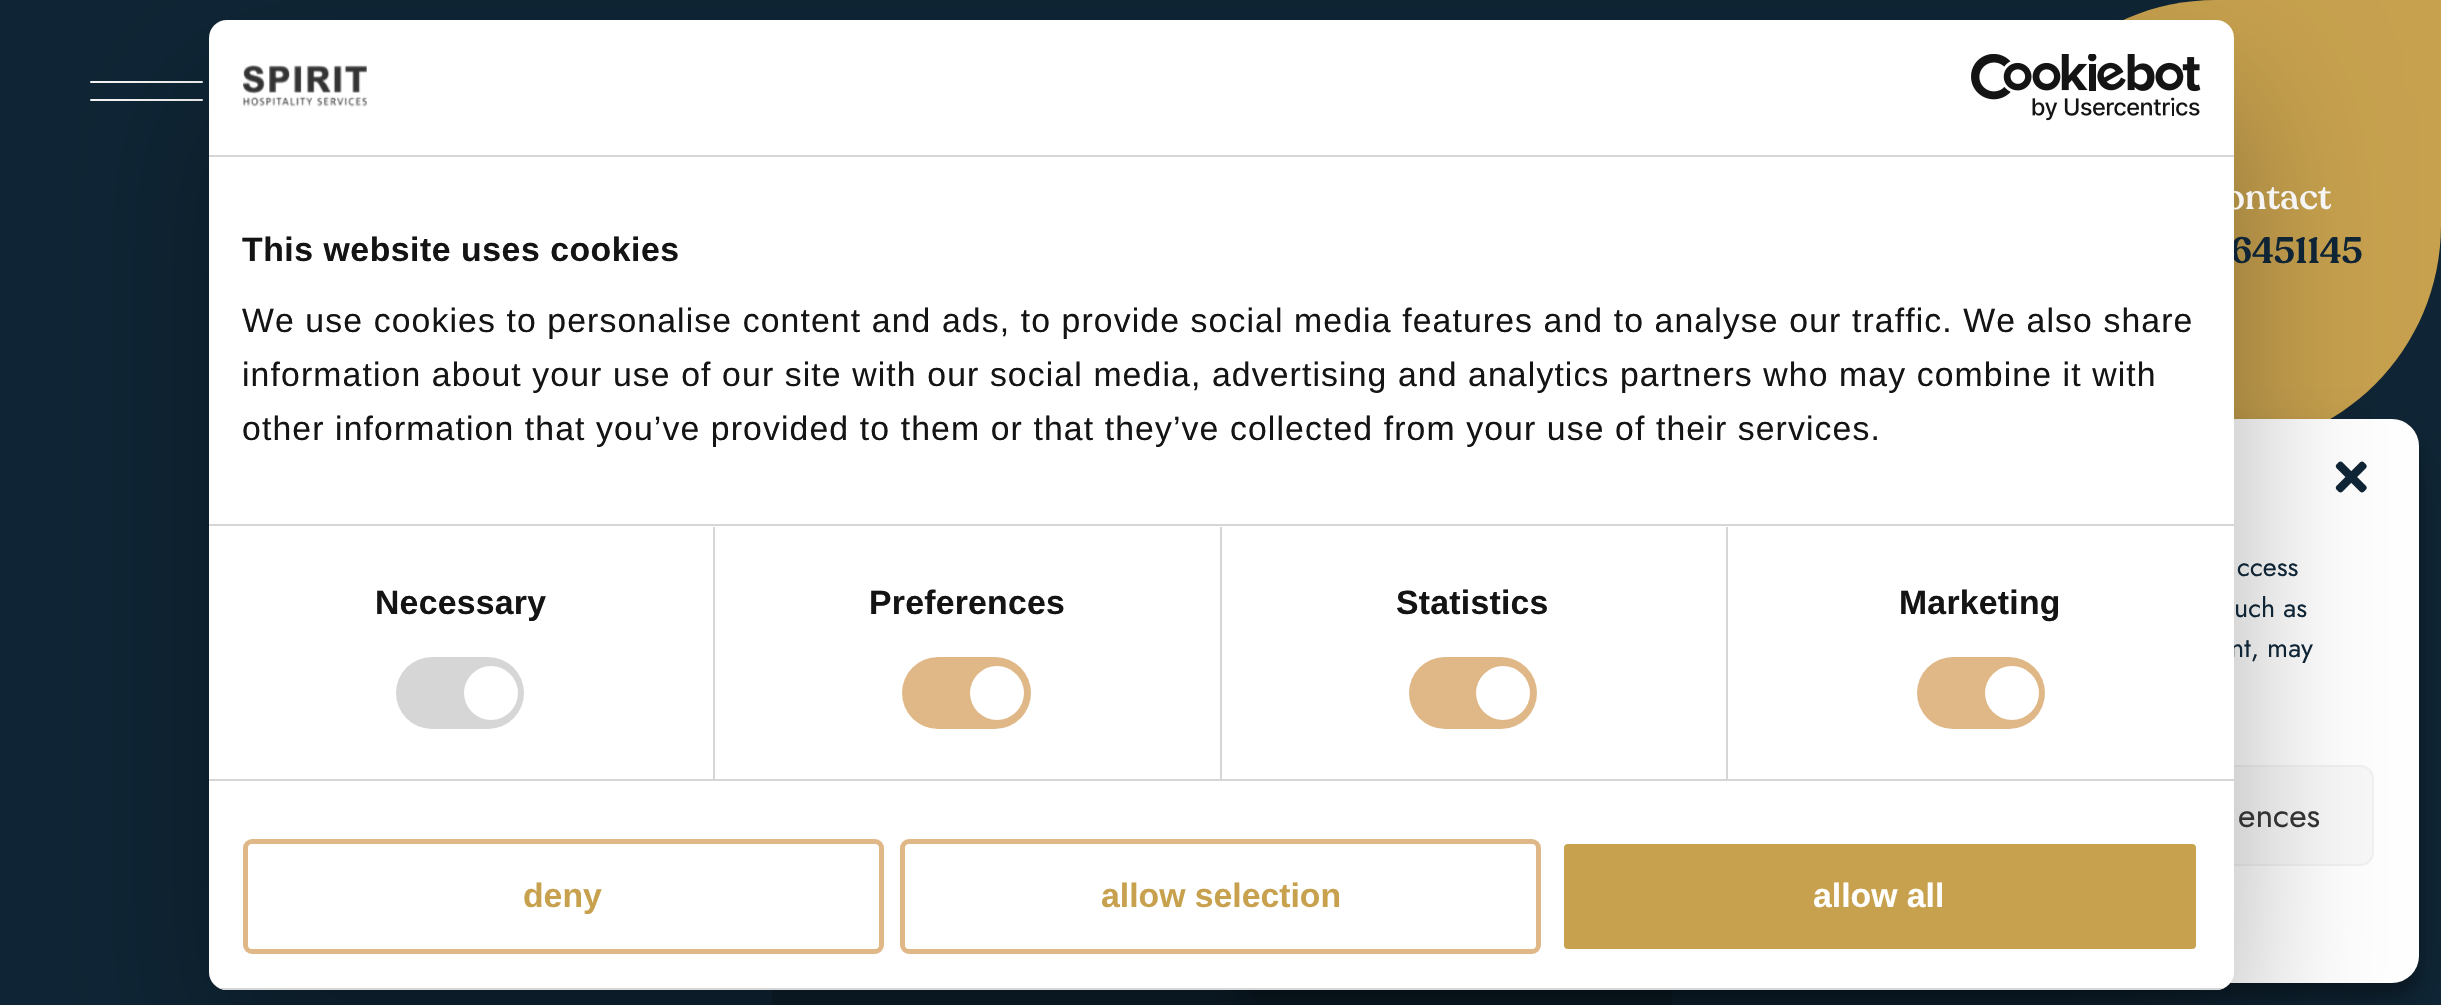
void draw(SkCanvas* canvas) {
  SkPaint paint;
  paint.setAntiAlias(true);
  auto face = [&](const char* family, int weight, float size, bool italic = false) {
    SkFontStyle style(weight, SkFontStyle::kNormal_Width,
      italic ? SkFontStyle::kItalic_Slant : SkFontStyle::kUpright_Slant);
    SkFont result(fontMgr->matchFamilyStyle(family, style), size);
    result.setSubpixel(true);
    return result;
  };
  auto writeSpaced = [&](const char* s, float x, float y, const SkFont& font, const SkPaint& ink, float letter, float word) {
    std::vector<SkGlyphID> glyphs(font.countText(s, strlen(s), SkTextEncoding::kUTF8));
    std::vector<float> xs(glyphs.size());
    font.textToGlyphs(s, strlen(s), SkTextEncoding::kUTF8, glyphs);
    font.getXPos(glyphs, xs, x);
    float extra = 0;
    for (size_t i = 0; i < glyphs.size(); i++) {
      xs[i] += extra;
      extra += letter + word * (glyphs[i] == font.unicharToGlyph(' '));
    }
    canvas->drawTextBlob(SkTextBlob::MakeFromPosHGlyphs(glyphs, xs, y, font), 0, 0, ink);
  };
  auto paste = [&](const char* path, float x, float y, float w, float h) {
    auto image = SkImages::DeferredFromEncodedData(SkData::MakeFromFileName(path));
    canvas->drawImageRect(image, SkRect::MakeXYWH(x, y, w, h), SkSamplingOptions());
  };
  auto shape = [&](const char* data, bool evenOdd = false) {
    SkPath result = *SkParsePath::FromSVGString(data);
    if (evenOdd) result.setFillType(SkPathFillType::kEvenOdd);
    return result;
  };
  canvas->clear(0xff0f2535);
  paint.setColor(0xfff5f5f5);
  canvas->drawRoundRect(SkRect::MakeXYWH(90, 81, 113, 2), 1, 1, paint);
  canvas->drawRoundRect(SkRect::MakeXYWH(90, 99, 113, 2), 1, 1, paint);
  paint.setColor(0xffc7a14e);
  canvas->drawPath(shape("M2216 0H2441V225C2441 349.5 2340.5 450 2216 450C2091.5 450 1991 349.5 1991 225C1991 100.5 2091.5 0 2216 0Z"), paint);
  paint.setColor(0xff0c1e2a);
  canvas->drawRect(SkRect::MakeXYWH(772, 990, 900, 15), paint);
  paint.setColor(0x3b000000);
  paint.setMaskFilter(SkMaskFilter::MakeBlur(kNormal_SkBlurStyle, 7));
  canvas->drawRoundRect(SkRect::MakeXYWH(1235, 432, 1184, 565), 27, 27, paint);
  paint.setMaskFilter(nullptr);
  paint.setColor(0x30000000);
  paint.setMaskFilter(SkMaskFilter::MakeBlur(kNormal_SkBlurStyle, 22.5f));
  canvas->drawRoundRect(SkRect::MakeXYWH(1235, 441, 1184, 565), 27, 27, paint);
  paint.setMaskFilter(nullptr);
  paint.setColor(0xffffffff);
  canvas->drawRoundRect(SkRect::MakeXYWH(1235, 419, 1184, 564), 27, 27, paint);
  paste("img/3.png", 2335, 461, 32, 32);
  paint.setColor(0xfff9f9f9);
  canvas->drawRoundRect(SkRect::MakeXYWH(2026, 766, 347, 99), 13, 13, paint);
  paint.setStroke(true);
  paint.setStrokeWidth(2);
  paint.setColor(0xfff2f2f2);
  canvas->drawRoundRect(SkRect::MakeXYWH(2026, 766, 347, 99), 13, 13, paint);
  paint.setStroke(false);
  paint.setColor(0x4d000000);
  paint.setMaskFilter(SkMaskFilter::MakeBlur(kNormal_SkBlurStyle, 76.5f));
  canvas->drawRoundRect(SkRect::MakeXYWH(209, 92, 2025, 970), 18, 18, paint);
  paint.setMaskFilter(nullptr);
  auto f0 = face("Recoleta", 500, 36.5f);
  paint.setColor(0xfff5f5f5);
  canvas->drawString("ontact", 2224, 209, f0, paint);
  auto f1 = face("Recoleta", 600, 36.5f);
  paint.setColor(0xff0f2535);
  canvas->drawString("6451145", 2230, 263, f1, paint);
  auto f2 = face("Jost", 400, 27);
  {
    const struct { const char* s; float x, y; } items[] = {
      {"ccess", 2237, 576},
      {"uch as", 2234, 617},
      {"nt, may", 2230, 657},
    };
    for (auto [s, x, y] : items) {
      canvas->drawString(s, x, y, f2, paint);
    }
  }
  paint.setColor(0xffffffff);
  canvas->drawRoundRect(SkRect::MakeXYWH(209, 20, 2025, 970), 18, 18, paint);
  paint.setColor(0xffc7a14e);
  canvas->drawRoundRect(SkRect::MakeXYWH(1561.5f, 841.5f, 637, 110), 6.5f, 6.5f, paint);
  paint.setStroke(true);
  paint.setStrokeWidth(5);
  paint.setColor(0xffffffff);
  canvas->drawRoundRect(SkRect::MakeXYWH(1561.5f, 841.5f, 637, 110), 6.5f, 6.5f, paint);
  auto f3 = face("Liberation Sans", 700, 33.75f);
  paint.setStroke(false);
  canvas->drawString("allow all", 1813, 907, f3, paint);
  paint.setStroke(true);
  paint.setColor(0xffe0b887);
  canvas->drawRoundRect(SkRect::MakeXYWH(902.5f, 841.5f, 636, 110), 6.5f, 6.5f, paint);
  paint.setStroke(false);
  paint.setColor(0xffc7a14e);
  canvas->drawString("allow selection", 1101, 907, f3, paint);
  paint.setStroke(true);
  paint.setColor(0xffe0b887);
  canvas->drawRoundRect(SkRect::MakeXYWH(245.5f, 841.5f, 636, 110), 6.5f, 6.5f, paint);
  paint.setStroke(false);
  paint.setColor(0xffc7a14e);
  canvas->drawString("deny", 523, 907, f3, paint);
  canvas->save();
  canvas->clipPath(shape("M227 20H2216C2226 20 2234 28 2234 38V972C2234 982 2226 990 2216 990H227C217 990 209 982 209 972V38C209 28 217 20 227 20Z"), true);
  paint.setColor(0xffd6d6d6);
  canvas->drawRect(SkRect::MakeXYWH(219, 988, 2005, 2), paint);
  canvas->restore();
  paint.setColor(0xffe0b887);
  canvas->drawRoundRect(SkRect::MakeXYWH(1917, 657, 128, 72), 36, 36, paint);
  paint.setColor(0xffffffff);
  canvas->drawCircle(2012, 693, 27, paint);
  paint.setColor(0xffe0b887);
  canvas->drawRoundRect(SkRect::MakeXYWH(1409, 657, 128, 72), 36, 36, paint);
  paint.setColor(0xffffffff);
  canvas->drawCircle(1503, 693, 27, paint);
  paint.setColor(0xffe0b887);
  canvas->drawRoundRect(SkRect::MakeXYWH(902, 657, 129, 72), 36, 36, paint);
  paint.setColor(0xffffffff);
  canvas->drawCircle(997, 693, 27, paint);
  paint.setColor(0xffd6d6d6);
  canvas->drawRoundRect(SkRect::MakeXYWH(396, 657, 128, 72), 36, 36, paint);
  paint.setColor(0xffffffff);
  canvas->drawCircle(491, 693, 27, paint);
  auto f4 = face("Liberation Sans", 400, 33.75f);
  paint.setColor(0xff141414);
  {
    const struct { const char* s; float x, y; } items[] = {
      {"other information that you’ve provided to them or that they’ve collected from your use of their services.", 242, 440},
      {"information about your use of our site with our social media, advertising and analytics partners who may combine it with", 242, 386},
      {"We use cookies to personalise content and ads, to provide social media features and to analyse our traffic. We also share", 242, 332},
    };
    for (auto [s, x, y] : items) {
      writeSpaced(s, x, y, f4, paint, 1.12f, 0);
    }
  }
  writeSpaced("This website uses cookies", 242, 261, f3, paint, 0.55f, 0);
  paint.setColor(0xffd6d6d6);
  canvas->drawRect(SkRect::MakeXYWH(209, 524, 2025, 2), paint);
  paint.setColor(0xff141414);
  writeSpaced("Marketing", 1899, 614, f3, paint, 0.25f, 0);
  writeSpaced("Statistics", 1396, 614, f3, paint, 0.25f, 0);
  paint.setColor(0xffd6d6d6);
  canvas->drawRect(SkRect::MakeXYWH(1726, 527, 2, 252), paint);
  paint.setColor(0xff141414);
  writeSpaced("Preferences", 869, 614, f3, paint, 0.25f, 0);
  paint.setColor(0xffd6d6d6);
  canvas->drawRect(SkRect::MakeXYWH(1220, 527, 2, 252), paint);
  paint.setColor(0xff141414);
  writeSpaced("Necessary", 375, 614, f3, paint, 0.25f, 0);
  paint.setColor(0xffd6d6d6);
  canvas->drawRect(SkRect::MakeXYWH(713, 527, 2, 252), paint);
  canvas->drawRect(SkRect::MakeXYWH(209, 779, 2025, 2), paint);
  paste("img/2.png", 1971, 54, 230, 67);
  paste("img/1.png", 242, 65, 125, 42);
  canvas->drawRect(SkRect::MakeXYWH(209, 155, 2025, 2), paint);
  auto f5 = face("Jost", 400, 33.75f);
  paint.setColor(0xff333333);
  canvas->drawString("ences", 2238, 827, f5, paint);
}
